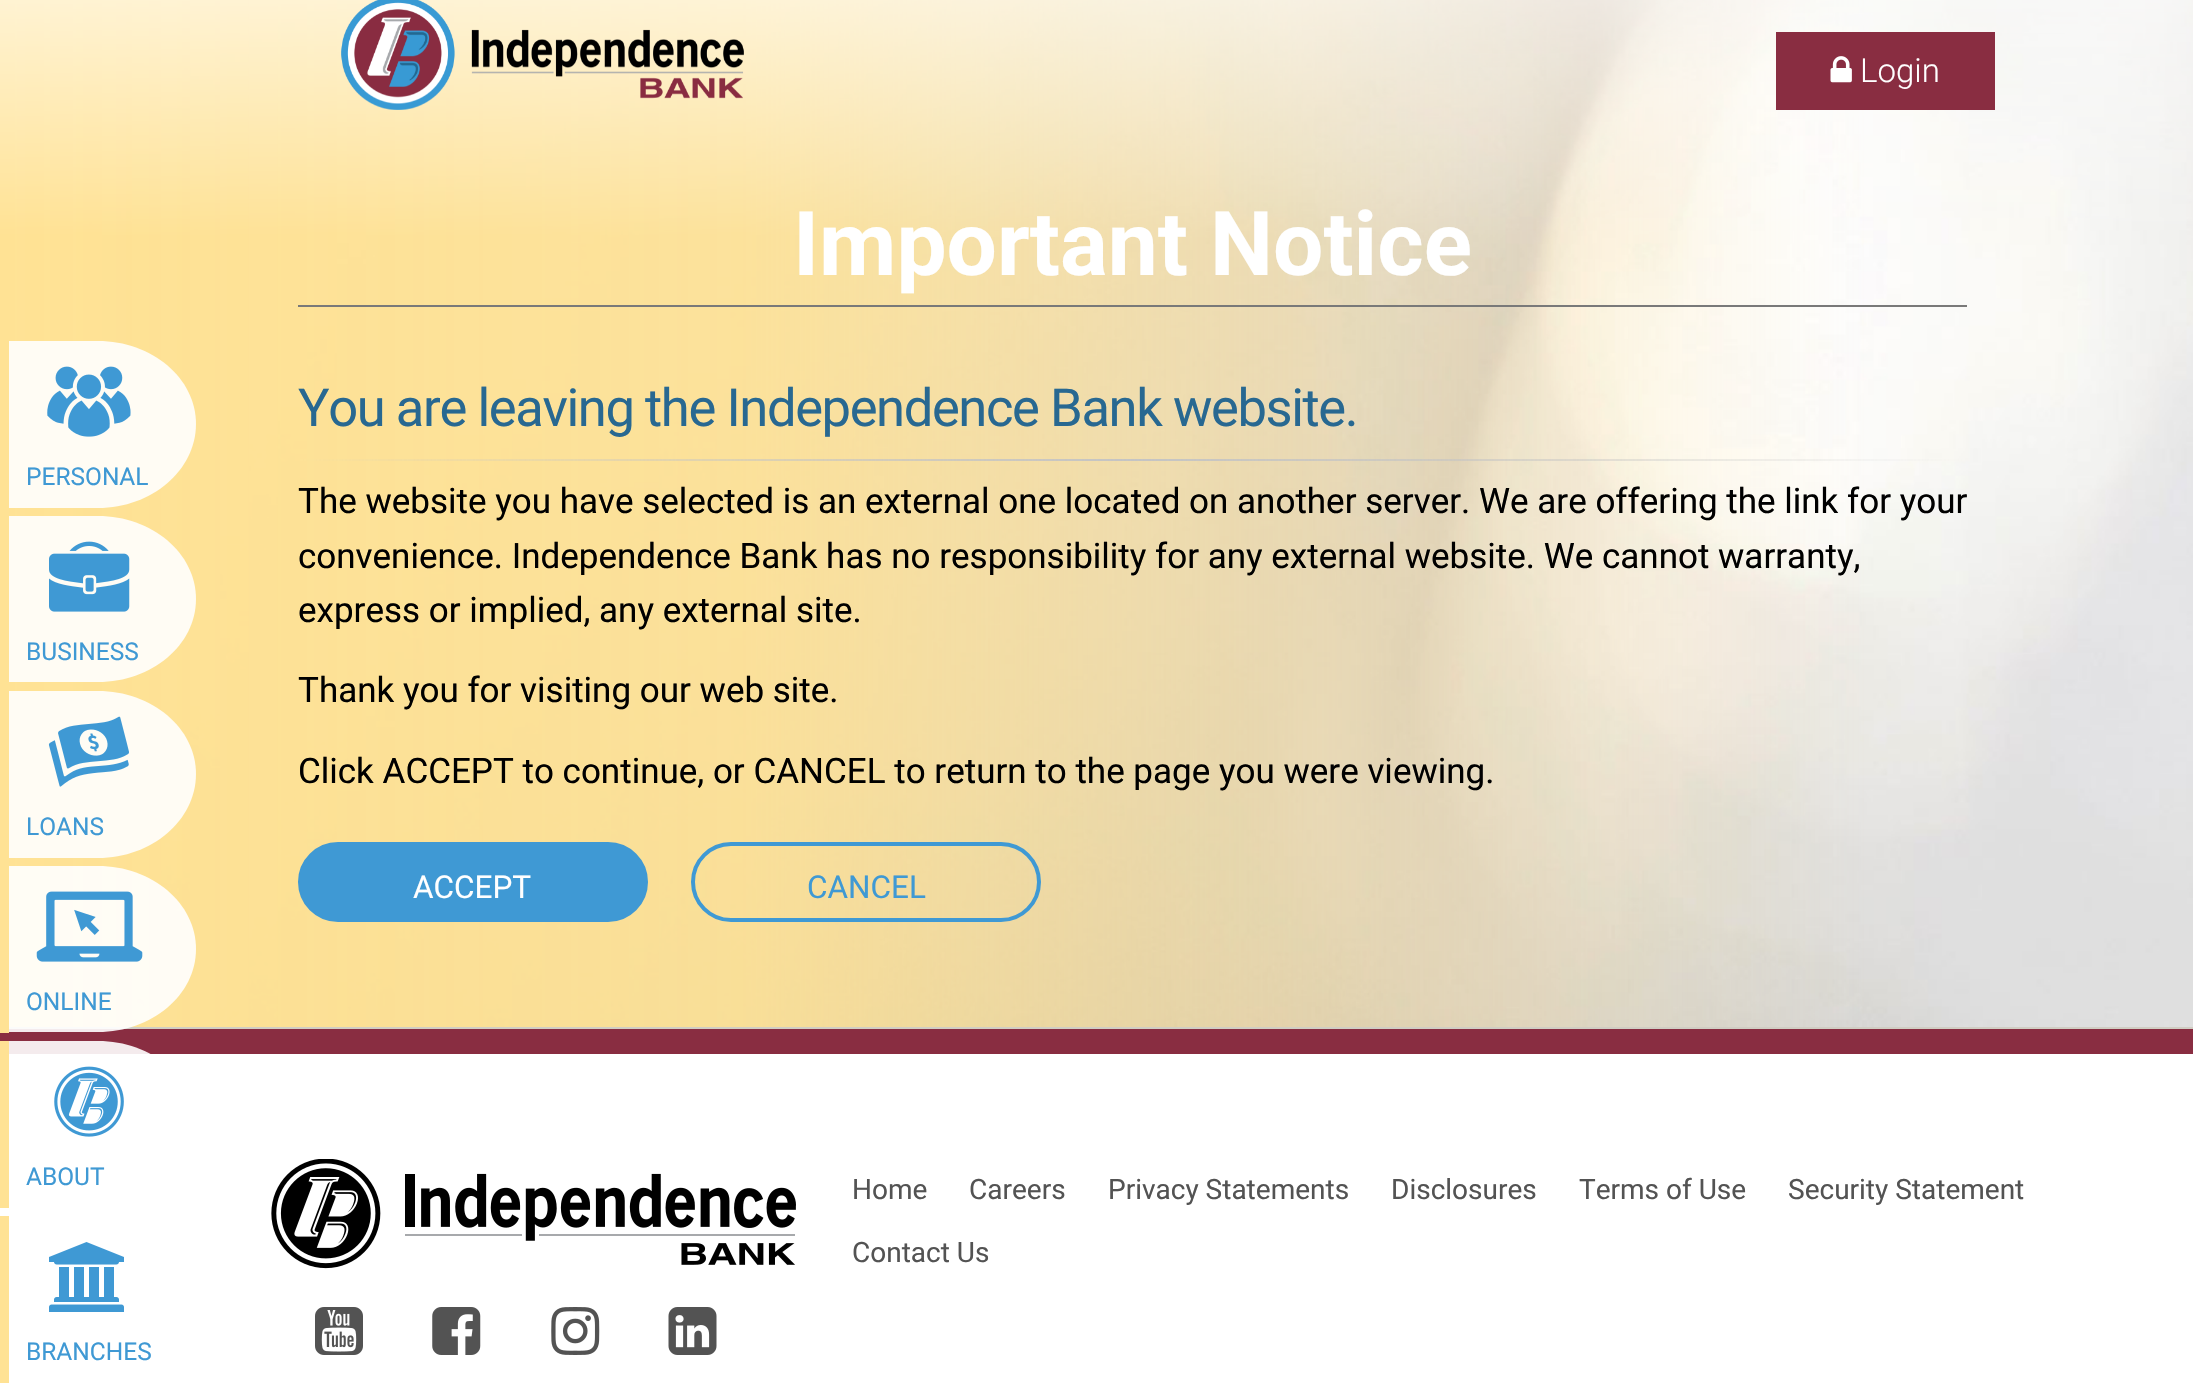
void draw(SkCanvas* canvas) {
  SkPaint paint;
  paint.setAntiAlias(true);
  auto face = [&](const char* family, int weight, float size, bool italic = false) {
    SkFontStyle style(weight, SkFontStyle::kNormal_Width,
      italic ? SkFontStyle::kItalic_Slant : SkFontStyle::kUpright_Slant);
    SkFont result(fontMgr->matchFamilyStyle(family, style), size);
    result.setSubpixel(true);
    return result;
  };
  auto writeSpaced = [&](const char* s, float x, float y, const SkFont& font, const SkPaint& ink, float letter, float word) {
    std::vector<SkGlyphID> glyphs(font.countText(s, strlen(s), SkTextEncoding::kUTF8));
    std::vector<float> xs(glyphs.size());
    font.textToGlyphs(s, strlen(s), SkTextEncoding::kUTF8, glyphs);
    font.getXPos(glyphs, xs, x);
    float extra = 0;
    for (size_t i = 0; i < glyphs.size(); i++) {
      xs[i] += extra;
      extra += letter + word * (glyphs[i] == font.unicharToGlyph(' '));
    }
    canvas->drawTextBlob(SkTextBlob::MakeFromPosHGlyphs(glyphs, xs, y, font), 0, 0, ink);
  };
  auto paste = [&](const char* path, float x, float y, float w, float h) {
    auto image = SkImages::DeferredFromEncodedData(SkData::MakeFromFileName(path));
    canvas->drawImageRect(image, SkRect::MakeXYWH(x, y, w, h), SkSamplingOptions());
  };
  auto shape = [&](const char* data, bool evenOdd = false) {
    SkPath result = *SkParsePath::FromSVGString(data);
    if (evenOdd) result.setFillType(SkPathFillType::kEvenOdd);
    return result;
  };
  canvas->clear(0xffffffff);
  paste("img/9.png", 0, 0, 2193, 1027);
  paste("img/1.png", 341, 0, 403, 110);
  paint.setColor(0xff892d41);
  canvas->drawRect(SkRect::MakeXYWH(1776, 32, 219, 78), paint);
  paste("img/2.png", 1830, 56, 22, 27);
  paint.setColor(0xfffffcf4);
  canvas->drawPath(shape("M9 341H98C152 341 196 378 196 424C196 470 152 508 98 508H9Z"), paint);
  paste("img/3.png", 47, 366, 84, 71);
  canvas->drawPath(shape("M9 516H98C152 516 196 553 196 599C196 645 152 682 98 682H9Z"), paint);
  paste("img/4.png", 49, 541, 81, 71);
  canvas->drawPath(shape("M9 691H98C152 691 196 728 196 774C196 820 152 858 98 858H9Z"), paint);
  paste("img/5.png", 48, 716, 81, 71);
  paint.setColor(0xffd0cdc3);
  canvas->drawRect(SkRect::MakeXYWH(9, 1027, 2184, 2), paint);
  paint.setColor(0xff892d41);
  canvas->drawRect(SkRect::MakeXYWH(0, 1029, 2193, 25), paint);
  paint.setColor(0xe6ffffff);
  canvas->drawPath(shape("M9 866H98C152 866 196 903 196 949C196 995 152 1032 98 1032H9Z"), paint);
  paint.setColor(0xffffe294);
  canvas->drawRect(SkRect::MakeXYWH(0, 1027, 9, 6), paint);
  paste("img/6.png", 36, 891, 107, 71);
  paint.setColor(0xe6ffffff);
  canvas->drawPath(shape("M9 1041H98C152 1041 196 1078 196 1124C196 1170 152 1208 98 1208H9Z"), paint);
  paint.setColor(0xffffe294);
  canvas->drawRect(SkRect::MakeXYWH(0, 1041, 9, 167), paint);
  paste("img/7.png", 54, 1066, 70, 71);
  canvas->drawRect(SkRect::MakeXYWH(0, 1216, 9, 167), paint);
  paste("img/8.png", 49, 1242, 75, 70);
  paint.setColor(0xff797979);
  canvas->drawRect(SkRect::MakeXYWH(298, 305, 1669, 2), paint);
  paint.setColor(0xff3f99d4);
  canvas->drawRoundRect(SkRect::MakeXYWH(300, 844, 346, 76), 38, 38, paint);
  paint.setStroke(true);
  paint.setStrokeWidth(4);
  canvas->drawRoundRect(SkRect::MakeXYWH(300, 844, 346, 76), 38, 38, paint);
  canvas->drawRoundRect(SkRect::MakeXYWH(693, 844, 346, 76), 38, 38, paint);
  paste("img/10.png", 271, 1159, 525, 110);
  paste("img/11.png", 315, 1307, 48, 48);
  paste("img/12.png", 432, 1307, 49, 48);
  paste("img/13.png", 551, 1307, 49, 48);
  paste("img/14.png", 668, 1307, 49, 48);
  auto f0 = face("Roboto", 300, 33);
  paint.setStroke(false);
  paint.setColor(0xffffffff);
  canvas->drawString("Login", 1860, 82, f0, paint);
  auto f1 = face("Roboto", 400, 24.5f);
  paint.setColor(0xff3f99d4);
  {
    const struct { const char* s; float x, y; } items[] = {
      {"PERSONAL", 26, 485},
      {"BUSINESS", 26, 660},
      {"LOANS", 26, 835},
      {"ONLINE", 26, 1010},
      {"ABOUT", 26, 1185},
      {"BRANCHES", 26, 1360},
    };
    for (auto [s, x, y] : items) {
      canvas->drawString(s, x, y, f1, paint);
    }
  }
  auto f2 = face("Roboto", 700, 89.25f);
  paint.setColor(0xffffffff);
  canvas->drawString("Important Notice", 793, 275, f2, paint);
  auto f3 = face("Roboto", 400, 52.5f);
  paint.setColor(0xff286891);
  writeSpaced("You are leaving the Independence Bank website.", 298, 426, f3, paint, -1.4f, 0);
  auto f4 = face("Roboto", 400, 35);
  paint.setColor(0xff000000);
  {
    const struct { const char* s; float x, y; } items[] = {
      {"The website you have selected is an external one located on another server. We are offering the link for your", 298, 513},
      {"convenience. Independence Bank has no responsibility for any external website. We cannot warranty,", 298, 568},
      {"express or implied, any external site.", 298, 622},
      {"Thank you for visiting our web site.", 298, 702},
      {"Click ACCEPT to continue, or CANCEL to return to the page you were viewing.", 298, 783},
    };
    for (auto [s, x, y] : items) {
      canvas->drawString(s, x, y, f4, paint);
    }
  }
  auto f5 = face("Roboto", 400, 31.5f);
  paint.setColor(0xffffffff);
  canvas->drawString("ACCEPT", 413, 898, f5, paint);
  paint.setColor(0xff3f99d4);
  canvas->drawString("CANCEL", 807, 898, f5, paint);
  auto f6 = face("Roboto", 400, 28);
  paint.setColor(0xff535353);
  {
    const struct { const char* s; float x, y; } items[] = {
      {"Home", 852, 1199},
      {"Careers", 969, 1199},
      {"Privacy Statements", 1108, 1199},
      {"Disclosures", 1391, 1199},
      {"Terms of Use", 1579, 1199},
      {"Security Statement", 1788, 1199},
      {"Contact Us", 852, 1262},
    };
    for (auto [s, x, y] : items) {
      canvas->drawString(s, x, y, f6, paint);
    }
  }
}
